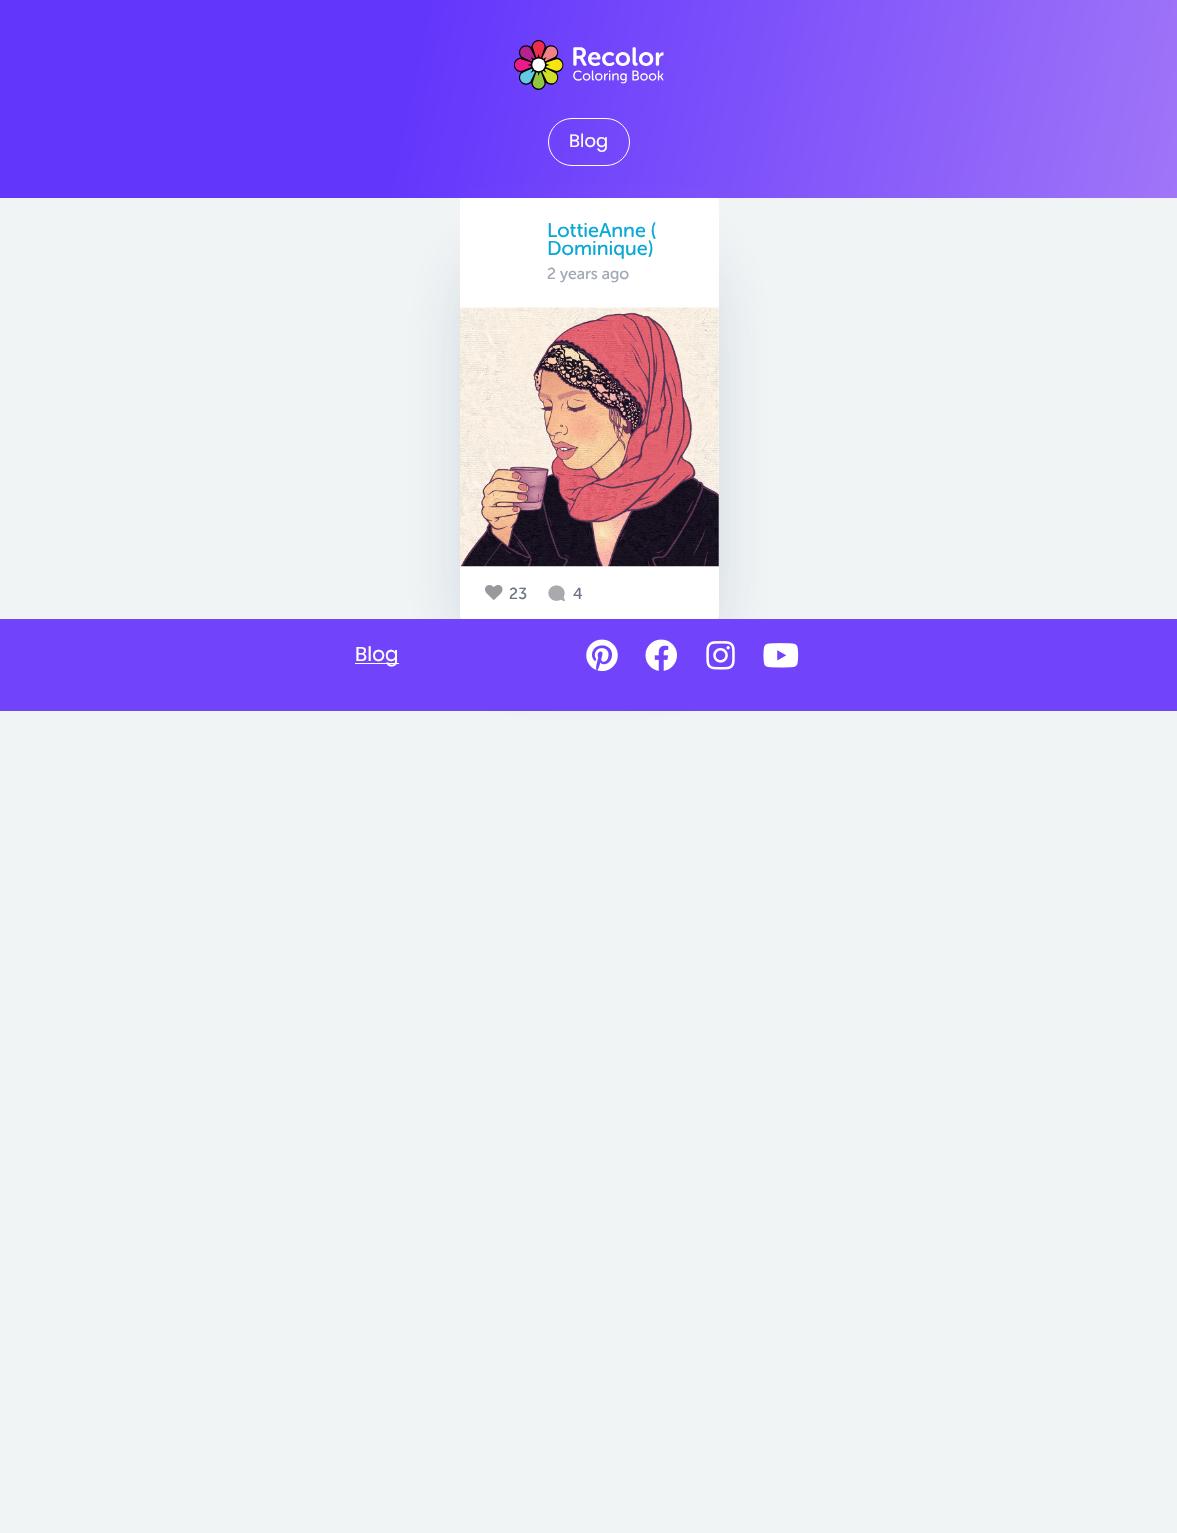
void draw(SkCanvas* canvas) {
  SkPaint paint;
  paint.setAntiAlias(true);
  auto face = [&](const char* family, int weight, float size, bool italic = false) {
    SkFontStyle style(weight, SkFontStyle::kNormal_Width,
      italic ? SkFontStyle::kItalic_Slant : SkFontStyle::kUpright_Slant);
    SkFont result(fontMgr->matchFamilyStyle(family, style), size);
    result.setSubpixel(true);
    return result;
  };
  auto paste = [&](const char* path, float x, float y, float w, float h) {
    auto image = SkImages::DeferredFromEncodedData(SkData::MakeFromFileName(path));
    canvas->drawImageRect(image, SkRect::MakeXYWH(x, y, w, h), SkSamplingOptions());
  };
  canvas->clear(0xfff1f4f5);
  {
    const SkColor colors[] = {0xff6336fc, 0xffa075f8};
    const float stops[] = {0.35f, 1};
    const SkPoint ends[] = {{5.4f, -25}, {1172, 223}};
    paint.setShader(SkGradientShader::MakeLinear(ends, colors, stops, 2, SkTileMode::kClamp));
    paint.setAlpha(255);
  }
  canvas->drawRect(SkRect::MakeXYWH(0, 0, 1177, 198), paint);
  paste("img/1.png", 514, 40, 150, 50);
  paint.setShader(nullptr);
  paint.setColor(0x4d0e3365);
  paint.setMaskFilter(SkMaskFilter::MakeBlur(kNormal_SkBlurStyle, 37.5f));
  canvas->drawRect(SkRect::MakeXYWH(485, 273, 209, 371), paint);
  paint.setMaskFilter(nullptr);
  paint.setStroke(true);
  paint.setStrokeWidth(1);
  paint.setColor(0xffffffff);
  canvas->drawRoundRect(SkRect::MakeXYWH(548.5f, 118.5f, 81, 47), 23.5f, 23.5f, paint);
  paint.setStroke(false);
  canvas->drawRoundRect(SkRect::MakeXYWH(460, 198, 259, 421), 2.5f, 2.5f, paint);
  paste("img/2.png", 460, 307, 259, 260);
  paste("img/3.png", 485, 585, 18, 15);
  paste("img/4.png", 548, 585, 17, 17);
  paint.setColor(0xff7144fb);
  canvas->drawRect(SkRect::MakeXYWH(0, 619, 1177, 92), paint);
  paint.setColor(0xffffffff);
  canvas->drawRect(SkRect::MakeXYWH(355, 663, 44, 1), paint);
  paste("img/5.png", 586, 639, 32, 33);
  paste("img/6.png", 645, 639, 32, 32);
  paste("img/7.png", 706, 641, 29, 29);
  paste("img/8.png", 763, 643, 36, 25);
  auto f0 = face("Poppins", 400, 18);
  canvas->drawString("Blog", 569, 147, f0, paint);
  auto f1 = face("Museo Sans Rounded", 400, 20);
  paint.setColor(0xff0ba7d5);
  canvas->drawString("LottieAnne (", 547, 237, f1, paint);
  canvas->drawString("Dominique)", 547, 255, f1, paint);
  auto f2 = face("Museo Sans Rounded", 400, 16);
  paint.setColor(0xffa2a8b5);
  canvas->drawString("2 years ago", 547, 279, f2, paint);
  paint.setColor(0xff6b7386);
  canvas->drawString("23", 509, 599, f2, paint);
  canvas->drawString("4", 573, 599, f2, paint);
  auto f3 = face("Poppins", 400, 20);
  paint.setColor(0xffffffff);
  canvas->drawString("Blog", 355, 661, f3, paint);
}
